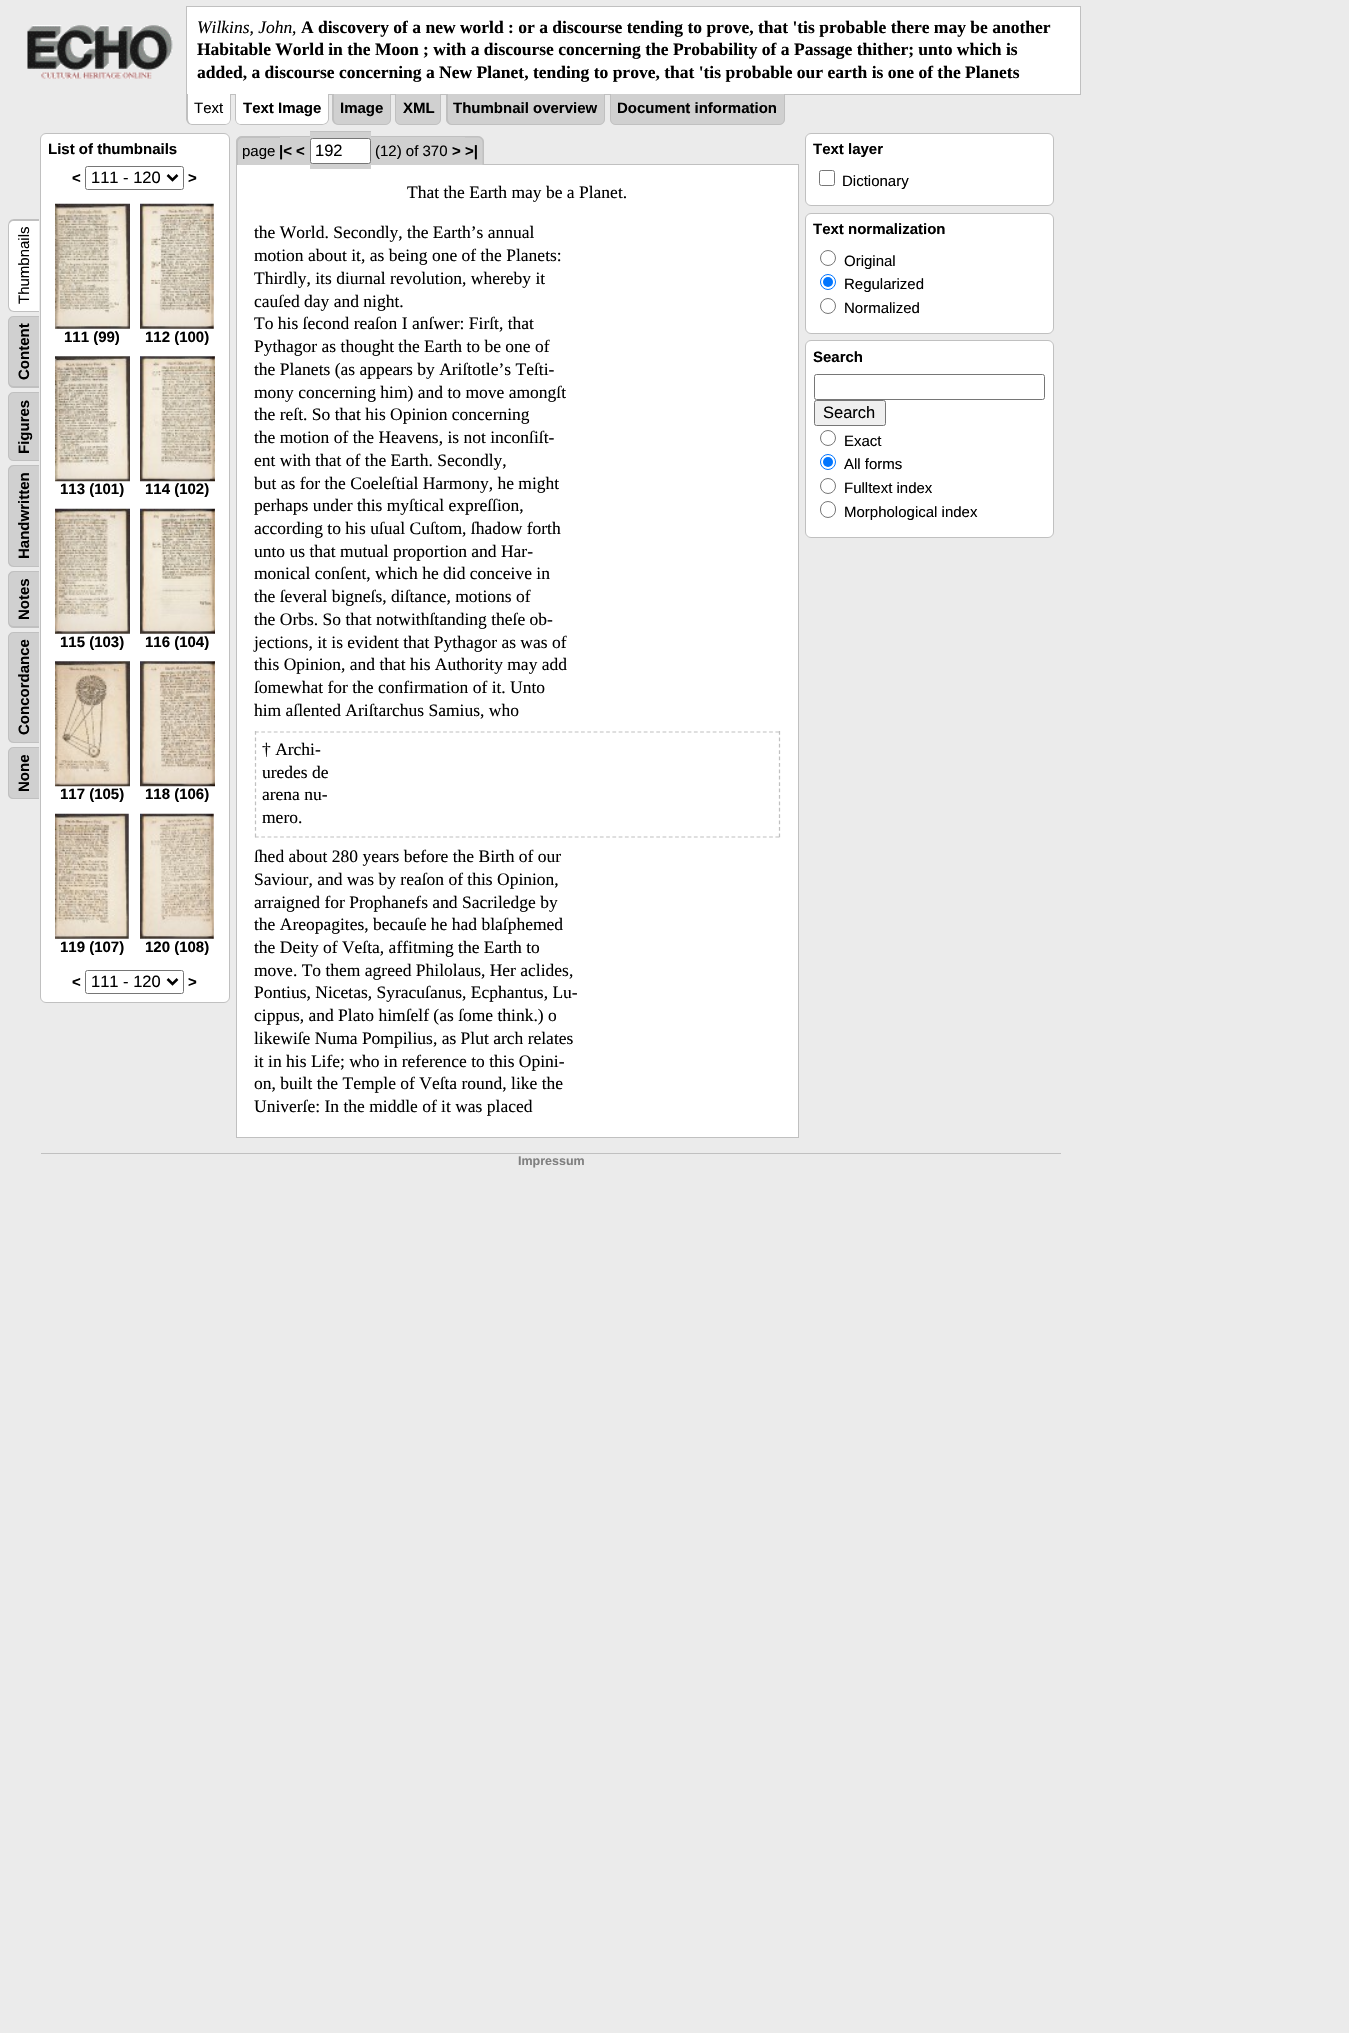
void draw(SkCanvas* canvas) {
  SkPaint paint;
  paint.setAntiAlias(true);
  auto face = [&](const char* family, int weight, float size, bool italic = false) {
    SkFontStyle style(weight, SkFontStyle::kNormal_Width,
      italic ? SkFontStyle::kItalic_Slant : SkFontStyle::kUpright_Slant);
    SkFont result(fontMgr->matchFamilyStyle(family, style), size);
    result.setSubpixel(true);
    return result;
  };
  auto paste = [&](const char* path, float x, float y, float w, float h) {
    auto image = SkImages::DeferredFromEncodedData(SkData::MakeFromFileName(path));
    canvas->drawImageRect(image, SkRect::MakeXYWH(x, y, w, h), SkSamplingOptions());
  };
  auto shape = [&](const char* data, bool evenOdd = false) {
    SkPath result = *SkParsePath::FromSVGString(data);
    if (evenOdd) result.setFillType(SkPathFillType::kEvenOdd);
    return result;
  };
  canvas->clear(0xffebebeb);
  paste("img/1.png", 27, 25, 146, 54);
  paint.setColor(0xffffffff);
  canvas->drawRect(SkRect::MakeXYWH(186.5f, 6.5f, 894, 88), paint);
  paint.setStroke(true);
  paint.setStrokeWidth(1);
  paint.setColor(0xffc0c0c0);
  canvas->drawRect(SkRect::MakeXYWH(186.5f, 6.5f, 894, 88), paint);
  paint.setStroke(false);
  paint.setColor(0xffffffff);
  canvas->drawPath(shape("M186 94H231V119C231 122.5 228.5 125 225 125H192C188.5 125 186 122.5 186 119Z"), paint);
  paint.setColor(0xffc0c0c0);
  canvas->drawPath(shape("M186 94H231V119C231 122 228 125 225 125H192C189 125 186 122 186 119ZM188 94H230V119C230 122 228 124 225 124H192C190 124 188 122 188 119Z", true), paint);
  paint.setColor(0xffffffff);
  canvas->drawPath(shape("M235 94H329V119C329 122.5 326.5 125 323 125H241C237.5 125 235 122.5 235 119Z"), paint);
  paint.setColor(0xffc0c0c0);
  canvas->drawPath(shape("M235 94H329V119C329 122 326 125 322 125H241C238 125 235 122 235 119ZM236 94H328V119C328 122 325 124 322 124H241C238 124 236 122 236 119Z", true), paint);
  paint.setColor(0xffd0d0d0);
  canvas->drawPath(shape("M333 94H391V119C391 122.5 388.5 125 385 125H339C335.5 125 333 122.5 333 119Z"), paint);
  paint.setColor(0xffc0c0c0);
  canvas->drawPath(shape("M332 94H391V119C391 122 388 125 385 125H339C335 125 332 122 332 119ZM334 94H390V119C390 122 388 124 385 124H339C336 124 334 122 334 119Z", true), paint);
  paint.setColor(0xffd0d0d0);
  canvas->drawPath(shape("M395 94H441V119C441 122.5 438.5 125 435 125H401C397.5 125 395 122.5 395 119Z"), paint);
  paint.setColor(0xffc0c0c0);
  canvas->drawPath(shape("M395 94H441V119C441 122 438 125 435 125H401C398 125 395 122 395 119ZM396 94H440V119C440 122 438 124 435 124H401C398 124 396 122 396 119Z", true), paint);
  paint.setColor(0xffd0d0d0);
  canvas->drawPath(shape("M446 94H605V119C605 122.5 602.5 125 599 125H452C448.5 125 446 122.5 446 119Z"), paint);
  paint.setColor(0xffc0c0c0);
  canvas->drawPath(shape("M446 94H605V119C605 122 602 125 599 125H452C449 125 446 122 446 119ZM448 94H604V119C604 122 602 124 599 124H452C450 124 448 122 448 119Z", true), paint);
  paint.setColor(0xffd0d0d0);
  canvas->drawPath(shape("M610 94H785V119C785 122.5 782.5 125 779 125H616C612.5 125 610 122.5 610 119Z"), paint);
  paint.setColor(0xffc0c0c0);
  canvas->drawPath(shape("M610 94H785V119C785 122 782 125 779 125H616C613 125 610 122 610 119ZM611 94H784V119C784 122 782 124 779 124H616C613 124 611 122 611 119Z", true), paint);
  paint.setColor(0xffffffff);
  canvas->drawPath(shape("M8 306V226C8 222 10 219 14 219H39V312H14C10 312 8 309 8 306Z"), paint);
  paint.setColor(0xffc0c0c0);
  canvas->drawPath(shape("M8 306V226C8 222 10 219 14 219H39V312H14C10 312 8 309 8 306ZM9 306V226C9 223 11 221 14 221H39V311H14C11 311 9 308 9 306Z", true), paint);
  paint.setColor(0xffd0d0d0);
  canvas->drawPath(shape("M8 381V322C8 319 10 316 14 316H39V388H14C10 388 8 385 8 381Z"), paint);
  paint.setColor(0xffc0c0c0);
  canvas->drawPath(shape("M8 381V322C8 319 10 316 14 316H39V388H14C10 388 8 385 8 381ZM9 381V322C9 319 11 317 14 317H39V386H14C11 386 9 384 9 381Z", true), paint);
  paint.setColor(0xffd0d0d0);
  canvas->drawPath(shape("M8 455V398C8 395 10 392 14 392H39V461H14C10 461 8 458 8 455Z"), paint);
  paint.setColor(0xffc0c0c0);
  canvas->drawPath(shape("M8 455V398C8 395 10 392 14 392H39V461H14C10 461 8 458 8 455ZM9 455V398C9 395 11 393 14 393H39V460H14C11 460 9 458 9 455Z", true), paint);
  paint.setColor(0xffd0d0d0);
  canvas->drawPath(shape("M8 561V471C8 468 10 465 14 465H39V567H14C10 567 8 564 8 561Z"), paint);
  paint.setColor(0xffc0c0c0);
  canvas->drawPath(shape("M8 561V471C8 468 10 465 14 465H39V567H14C10 567 8 564 8 561ZM9 561V471C9 469 11 466 14 466H39V566H14C11 566 9 563 9 561Z", true), paint);
  paint.setColor(0xffd0d0d0);
  canvas->drawPath(shape("M8 621V577C8 574 10 571 14 571H39V628H14C10 628 8 625 8 621Z"), paint);
  paint.setColor(0xffc0c0c0);
  canvas->drawPath(shape("M8 621V577C8 574 10 571 14 571H39V628H14C10 628 8 625 8 621ZM9 621V577C9 575 11 572 14 572H39V626H14C11 626 9 624 9 621Z", true), paint);
  paint.setColor(0xffd0d0d0);
  canvas->drawPath(shape("M8 737V638C8 635 10 632 14 632H39V743H14C10 743 8 740 8 737Z"), paint);
  paint.setColor(0xffc0c0c0);
  canvas->drawPath(shape("M8 737V638C8 635 10 632 14 632H39V743H14C10 743 8 740 8 737ZM9 737V638C9 635 11 633 14 633H39V742H14C11 742 9 739 9 737Z", true), paint);
  paint.setColor(0xffd0d0d0);
  canvas->drawPath(shape("M8 793V753C8 750 10 747 14 747H39V799H14C10 799 8 797 8 793Z"), paint);
  paint.setColor(0xffc0c0c0);
  canvas->drawPath(shape("M8 793V753C8 750 10 747 14 747H39V799H14C10 799 8 797 8 793ZM9 793V753C9 750 11 748 14 748H39V798H14C11 798 9 796 9 793Z", true), paint);
  paint.setColor(0xffffffff);
  canvas->drawRoundRect(SkRect::MakeXYWH(40.5f, 133.5f, 189, 869), 5.5f, 5.5f, paint);
  paint.setStroke(true);
  paint.setColor(0xffc0c0c0);
  canvas->drawRoundRect(SkRect::MakeXYWH(40.5f, 133.5f, 189, 869), 5.5f, 5.5f, paint);
  paint.setColor(0xff767676);
  canvas->drawRoundRect(SkRect::MakeXYWH(85.5f, 166.5f, 98, 23), 2, 2, paint);
  paint.setStrokeWidth(2.5f);
  paint.setColor(0xff000000);
  canvas->drawPath(shape("M167.5 175L172.5 180L177.5 175"), paint);
  paste("img/2.png", 55, 203, 75, 126);
  paste("img/3.png", 140, 203, 74, 126);
  paste("img/4.png", 55, 356, 75, 126);
  paste("img/5.png", 140, 356, 75, 126);
  paste("img/6.png", 55, 508, 75, 126);
  paste("img/7.png", 140, 508, 75, 126);
  paste("img/8.png", 55, 661, 75, 126);
  paste("img/9.png", 140, 661, 75, 126);
  paste("img/10.png", 55, 813, 74, 126);
  paste("img/11.png", 140, 813, 74, 126);
  paint.setStrokeWidth(1);
  paint.setColor(0xff767676);
  canvas->drawRoundRect(SkRect::MakeXYWH(85.5f, 970.5f, 98, 23), 2, 2, paint);
  paint.setStrokeWidth(2.5f);
  paint.setColor(0xff000000);
  canvas->drawPath(shape("M167.5 979L172.5 984L177.5 979"), paint);
  paint.setStroke(false);
  paint.setColor(0xffffffff);
  canvas->drawRect(SkRect::MakeXYWH(236.5f, 164.5f, 562, 973), paint);
  paint.setStroke(true);
  paint.setStrokeWidth(1);
  paint.setColor(0xffc0c0c0);
  canvas->drawRect(SkRect::MakeXYWH(236.5f, 164.5f, 562, 973), paint);
  paint.setStroke(false);
  paint.setColor(0xffd0d0d0);
  canvas->drawPath(shape("M242 136H280V165H236V142C236 138.5 238.5 136 242 136Z"), paint);
  paint.setColor(0xffc0c0c0);
  canvas->drawPath(shape("M242 136H280V165H236V142C236 139 239 136 242 136ZM242 138H280V165H238V142C238 140 240 138 242 138Z", true), paint);
  {
    const struct { float x, y, w, h; SkColor color; } items[] = {
      {280, 137, 13, 28, 0xffd0d0d0},
      {280, 136, 13, 1, 0xffc0c0c0},
      {293, 136, 3, 29, 0xffd0d0d0},
      {293, 136, 12, 1, 0xffc0c0c0},
      {296, 137, 9, 28, 0xffd0d0d0},
      {305, 136, 5, 29, 0xffd0d0d0},
      {305, 136, 5, 1, 0xffc0c0c0},
      {310, 132, 61, 37, 0xffd0d0d0},
      {310, 131, 61, 1, 0xffc0c0c0},
      {371, 136, 4, 29, 0xffd0d0d0},
      {371, 136, 89, 1, 0xffc0c0c0},
      {375, 137, 85, 28, 0xffd0d0d0},
      {460, 136, 5, 29, 0xffd0d0d0},
      {460, 136, 5, 1, 0xffc0c0c0},
    };
    for (auto [x, y, w, h, color] : items) {
      paint.setColor(color);
      canvas->drawRect(SkRect::MakeXYWH(x, y, w, h), paint);
    }
  }
  paint.setColor(0xffd0d0d0);
  canvas->drawPath(shape("M465 136H478C481.5 136 484 138.5 484 142V165H465Z"), paint);
  paint.setColor(0xffc0c0c0);
  canvas->drawPath(shape("M465 136H477.5C481 136 484 139 484 142.5V165H465ZM465 137.5H477.5C480.5 137.5 482.5 139.5 482.5 142.5V165H465Z", true), paint);
  paint.setColor(0xffffffff);
  canvas->drawRoundRect(SkRect::MakeXYWH(310.5f, 138.5f, 60, 25), 2, 2, paint);
  paint.setStroke(true);
  paint.setColor(0xff767676);
  canvas->drawRoundRect(SkRect::MakeXYWH(310.5f, 138.5f, 60, 25), 2, 2, paint);
  paint.setStrokeWidth(1.2f);
  paint.setColor(0xffc0c0c0);
  paint.setPathEffect(SkDashPathEffect::Make({{3.75f, 2.52f}}, 0));
  canvas->drawPath(shape("M255 732H780"), paint);
  paint.setPathEffect(nullptr);
  paint.setPathEffect(SkDashPathEffect::Make({{3.75f, 2.65f}}, 0));
  canvas->drawPath(shape("M779.5 731V837.5"), paint);
  paint.setPathEffect(nullptr);
  paint.setPathEffect(SkDashPathEffect::Make({{3.75f, 2.52f}}, 0));
  canvas->drawPath(shape("M255 837H780"), paint);
  paint.setPathEffect(nullptr);
  paint.setPathEffect(SkDashPathEffect::Make({{3.75f, 2.65f}}, 0));
  canvas->drawPath(shape("M255.5 731V837.5"), paint);
  paint.setPathEffect(nullptr);
  paint.setStroke(false);
  paint.setColor(0xffffffff);
  canvas->drawRoundRect(SkRect::MakeXYWH(805.5f, 133.5f, 248, 72), 5.5f, 5.5f, paint);
  paint.setStroke(true);
  paint.setStrokeWidth(1);
  paint.setColor(0xffc0c0c0);
  canvas->drawRoundRect(SkRect::MakeXYWH(805.5f, 133.5f, 248, 72), 5.5f, 5.5f, paint);
  paint.setColor(0xff767676);
  canvas->drawRoundRect(SkRect::MakeXYWH(819.5f, 170.5f, 15, 15), 2, 2, paint);
  paint.setStroke(false);
  paint.setColor(0xffffffff);
  canvas->drawRoundRect(SkRect::MakeXYWH(805.5f, 213.5f, 248, 120), 5.5f, 5.5f, paint);
  paint.setStroke(true);
  paint.setColor(0xffc0c0c0);
  canvas->drawRoundRect(SkRect::MakeXYWH(805.5f, 213.5f, 248, 120), 5.5f, 5.5f, paint);
  paint.setColor(0xff767676);
  canvas->drawCircle(828, 258, 7.5f, paint);
  paint.setColor(0xff0075ff);
  canvas->drawCircle(828, 282, 7.5f, paint);
  paint.setStroke(false);
  canvas->drawCircle(828, 282, 5, paint);
  paint.setStroke(true);
  paint.setColor(0xff767676);
  canvas->drawCircle(828, 306, 7.5f, paint);
  paint.setStroke(false);
  paint.setColor(0xffffffff);
  canvas->drawRoundRect(SkRect::MakeXYWH(805.5f, 340.5f, 248, 197), 5.5f, 5.5f, paint);
  paint.setStroke(true);
  paint.setColor(0xffc0c0c0);
  canvas->drawRoundRect(SkRect::MakeXYWH(805.5f, 340.5f, 248, 197), 5.5f, 5.5f, paint);
  paint.setColor(0xff767676);
  canvas->drawRoundRect(SkRect::MakeXYWH(814.5f, 374.5f, 230, 25), 2, 2, paint);
  paint.setStroke(false);
  paint.setColor(0xffefefef);
  canvas->drawRoundRect(SkRect::MakeXYWH(814.5f, 400.5f, 71, 25), 2, 2, paint);
  paint.setStroke(true);
  paint.setColor(0xff767676);
  canvas->drawRoundRect(SkRect::MakeXYWH(814.5f, 400.5f, 71, 25), 2, 2, paint);
  canvas->drawCircle(828, 438, 7.5f, paint);
  paint.setColor(0xff0075ff);
  canvas->drawCircle(828, 462, 7.5f, paint);
  paint.setStroke(false);
  canvas->drawCircle(828, 462, 5, paint);
  paint.setStroke(true);
  paint.setColor(0xff767676);
  canvas->drawCircle(828, 486, 7.5f, paint);
  canvas->drawRoundRect(SkRect::MakeXYWH(820.5f, 501.5f, 15, 16), 7.5f, 7.5f, paint);
  paint.setStroke(false);
  paint.setColor(0xffc0c0c0);
  canvas->drawRect(SkRect::MakeXYWH(41, 1153, 1020, 1), paint);
  auto f0 = face("Liberation Serif", 400, 17.5f, true);
  paint.setColor(0xff000000);
  canvas->drawString("Wilkins, John", 197, 33, f0, paint);
  auto f1 = face("Liberation Serif", 400, 17.5f);
  canvas->drawString(",", 292, 33, f1, paint);
  auto f2 = face("Liberation Serif", 700, 17.5f);
  {
    const struct { const char* s; float x, y; } items[] = {
      {"A discovery of a new world : or a discourse tending to prove, that 'tis probable there may be another", 301, 33},
      {"Habitable World in the Moon ; with a discourse concerning the Probability of a Passage thither; unto which is", 197, 55},
      {"added, a discourse concerning a New Planet, tending to prove, that 'tis probable our earth is one of the Planets", 197, 78},
    };
    for (auto [s, x, y] : items) {
      canvas->drawString(s, x, y, f2, paint);
    }
  }
  auto f3 = face("Liberation Sans", 400, 15);
  canvas->drawString("Text", 194, 113, f3, paint);
  auto f4 = face("Liberation Sans", 700, 15);
  {
    const struct { const char* s; float x, y; } items[] = {
      {"Text Image", 243, 113},
      {"Image", 340, 113},
      {"XML", 403, 113},
      {"Thumbnail overview", 453, 113},
      {"Document information", 617, 113},
    };
    for (auto [s, x, y] : items) {
      canvas->drawString(s, x, y, f4, paint);
    }
  }
  canvas->save();
  canvas->rotate(-90, 29, 304);
  canvas->drawString("Thumbnails", 29, 304, f3, paint);
  canvas->restore();
  canvas->save();
  canvas->rotate(-90, 29, 380);
  canvas->drawString("Content", 29, 380, f4, paint);
  canvas->restore();
  canvas->save();
  canvas->rotate(-90, 29, 454);
  canvas->drawString("Figures", 29, 454, f4, paint);
  canvas->restore();
  canvas->save();
  canvas->rotate(-90, 29, 559);
  canvas->drawString("Handwritten", 29, 559, f4, paint);
  canvas->restore();
  canvas->save();
  canvas->rotate(-90, 29, 620);
  canvas->drawString("Notes", 29, 620, f4, paint);
  canvas->restore();
  canvas->save();
  canvas->rotate(-90, 29, 735);
  canvas->drawString("Concordance", 29, 735, f4, paint);
  canvas->restore();
  canvas->save();
  canvas->rotate(-90, 29, 792);
  canvas->drawString("None", 29, 792, f4, paint);
  canvas->restore();
  canvas->drawString("List of thumbnails", 48, 154, f4, paint);
  canvas->drawString("<", 72, 183, f4, paint);
  auto f5 = face("Liberation Sans", 400, 16.5f);
  canvas->drawString("111 - 120", 91, 183, f5, paint);
  {
    const struct { const char* s; float x, y; } items[] = {
      {">", 188, 183},
      {"111 (99)", 64, 342},
      {"112 (100)", 145, 342},
      {"113 (101)", 60, 494},
      {"114 (102)", 145, 494},
      {"115 (103)", 60, 647},
      {"116 (104)", 145, 647},
      {"117 (105)", 60, 799},
      {"118 (106)", 145, 799},
      {"119 (107)", 60, 952},
      {"120 (108)", 145, 952},
      {"<", 72, 987},
    };
    for (auto [s, x, y] : items) {
      canvas->drawString(s, x, y, f4, paint);
    }
  }
  canvas->drawString("111 - 120", 91, 987, f5, paint);
  canvas->drawString(">", 188, 987, f4, paint);
  canvas->drawString("page", 242, 156, f3, paint);
  canvas->drawString("|< <", 279, 156, f4, paint);
  canvas->drawString("192", 315, 156, f5, paint);
  canvas->drawString("(12) of 370", 375, 156, f3, paint);
  canvas->drawString("> >|", 452, 156, f4, paint);
  {
    const struct { const char* s; float x, y; } items[] = {
      {"That the Earth may be a Planet.", 407, 198},
      {"the World. Secondly, the Earth’s annual", 254, 238},
      {"motion about it, as being one of the Planets:", 254, 261},
      {"Thirdly, its diurnal revolution, whereby it", 254, 284},
      {"cauſed day and night.", 254, 307},
      {"To his ſecond reaſon I anſwer: Firſt, that", 254, 329},
      {"Pythagor as thought the Earth to be one of", 254, 352},
      {"the Planets (as appears by Ariſtotle’s Teſti-", 254, 375},
      {"mony concerning him) and to move amongſt", 254, 398},
      {"the reſt. So that his Opinion concerning", 254, 420},
      {"the motion of the Heavens, is not inconſiſt-", 254, 443},
      {"ent with that of the Earth. Secondly,", 254, 466},
      {"but as for the Coeleſtial Harmony, he might", 254, 489},
      {"perhaps under this myſtical expreſſion,", 254, 511},
      {"according to his uſual Cuſtom, ſhadow forth", 254, 534},
      {"unto us that mutual proportion and Har-", 254, 557},
      {"monical conſent, which he did conceive in", 254, 579},
      {"the ſeveral bigneſs, diſtance, motions of", 254, 602},
      {"the Orbs. So that notwithſtanding theſe ob-", 254, 625},
      {"jections, it is evident that Pythagor as was of", 254, 648},
      {"this Opinion, and that his Authority may add", 254, 670},
      {"ſomewhat for the confirmation of it. Unto", 254, 693},
      {"him aſlented Ariſtarchus Samius, who", 254, 716},
      {"† Archi-", 262, 755},
      {"uredes de", 262, 778},
      {"arena nu-", 262, 800},
      {"mero.", 262, 823},
      {"ſhed about 280 years before the Birth of our", 254, 862},
      {"Saviour, and was by reaſon of this Opinion,", 254, 885},
      {"arraigned for Prophanefs and Sacriledge by", 254, 908},
      {"the Areopagites, becauſe he had blaſphemed", 254, 930},
      {"the Deity of Veſta, affitming the Earth to", 254, 953},
      {"move. To them agreed Philolaus, Her aclides,", 254, 976},
      {"Pontius, Nicetas, Syracuſanus, Ecphantus, Lu-", 254, 998},
      {"cippus, and Plato himſelf (as ſome think.) o", 254, 1021},
      {"likewiſe Numa Pompilius, as Plut arch relates", 254, 1044},
      {"it in his Life; who in reference to this Opini-", 254, 1067},
      {"on, built the Temple of Veſta round, like the", 254, 1089},
      {"Univerſe: In the middle of it was placed", 254, 1112},
    };
    for (auto [s, x, y] : items) {
      canvas->drawString(s, x, y, f1, paint);
    }
  }
  canvas->drawString("Text layer", 813, 154, f4, paint);
  canvas->drawString("Dictionary", 842, 186, f3, paint);
  canvas->drawString("Text normalization", 813, 234, f4, paint);
  {
    const struct { const char* s; float x, y; } items[] = {
      {"Original", 844, 266},
      {"Regularized", 844, 289},
      {"Normalized", 844, 313},
    };
    for (auto [s, x, y] : items) {
      canvas->drawString(s, x, y, f3, paint);
    }
  }
  canvas->drawString("Search", 813, 362, f4, paint);
  canvas->drawString("Search", 823, 418, f5, paint);
  {
    const struct { const char* s; float x, y; } items[] = {
      {"Exact", 844, 446},
      {"All forms", 844, 469},
      {"Fulltext index", 844, 493},
      {"Morphological index", 844, 517},
    };
    for (auto [s, x, y] : items) {
      canvas->drawString(s, x, y, f3, paint);
    }
  }
  auto f6 = face("Liberation Sans", 700, 12.5f);
  paint.setColor(0xff808080);
  canvas->drawString("Impressum", 518, 1165, f6, paint);
}
